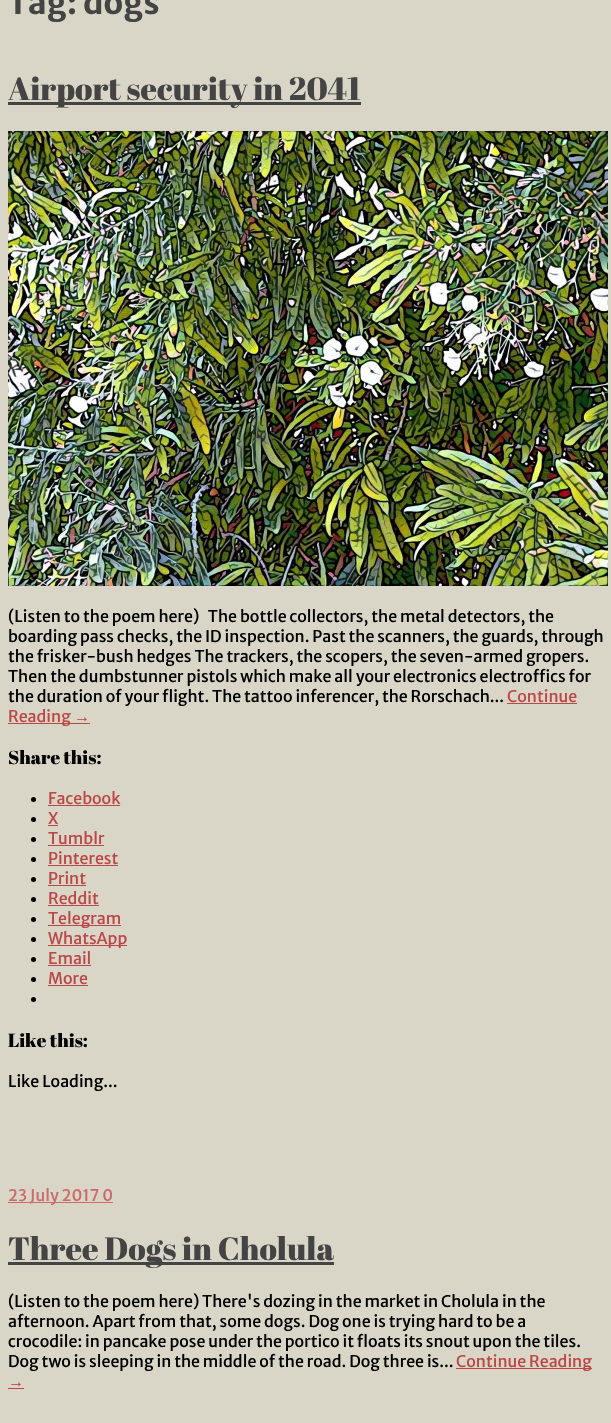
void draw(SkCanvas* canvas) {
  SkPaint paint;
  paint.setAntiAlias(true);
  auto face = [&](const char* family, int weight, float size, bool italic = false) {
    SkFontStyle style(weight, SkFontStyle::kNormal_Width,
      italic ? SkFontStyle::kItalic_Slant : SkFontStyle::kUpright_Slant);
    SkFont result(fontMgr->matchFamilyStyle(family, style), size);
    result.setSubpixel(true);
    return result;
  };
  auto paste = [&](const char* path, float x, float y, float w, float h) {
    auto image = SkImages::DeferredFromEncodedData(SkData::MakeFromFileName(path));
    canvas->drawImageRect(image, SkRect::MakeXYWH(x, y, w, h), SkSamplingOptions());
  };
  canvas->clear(0xffd9d6c8);
  paint.setColor(0xff444444);
  canvas->drawRect(SkRect::MakeXYWH(8, 102, 353, 3), paint);
  paste("img/1.png", 8, 131, 600, 455);
  paint.setColor(0xffbc4747);
  canvas->drawRect(SkRect::MakeXYWH(507, 703, 70, 1), paint);
  canvas->drawRect(SkRect::MakeXYWH(8, 723, 82, 1), paint);
  paint.setColor(0xff000000);
  canvas->drawCircle(33.5f, 799.5f, 2.5f, paint);
  paint.setColor(0xffbc4747);
  canvas->drawRect(SkRect::MakeXYWH(48, 805, 72, 1), paint);
  paint.setColor(0xff000000);
  canvas->drawCircle(33.5f, 819.5f, 2.5f, paint);
  paint.setColor(0xffbc4747);
  canvas->drawRect(SkRect::MakeXYWH(48, 825, 10, 1), paint);
  paint.setColor(0xff000000);
  canvas->drawCircle(33.5f, 839.5f, 2.5f, paint);
  paint.setColor(0xffbc4747);
  canvas->drawRect(SkRect::MakeXYWH(48, 845, 56, 1), paint);
  paint.setColor(0xff000000);
  canvas->drawCircle(33.5f, 859.5f, 2.5f, paint);
  paint.setColor(0xffbc4747);
  canvas->drawRect(SkRect::MakeXYWH(48, 865, 70, 1), paint);
  paint.setColor(0xff000000);
  canvas->drawCircle(33.5f, 879.5f, 2.5f, paint);
  paint.setColor(0xffbc4747);
  canvas->drawRect(SkRect::MakeXYWH(48, 885, 38, 1), paint);
  paint.setColor(0xff000000);
  canvas->drawCircle(33.5f, 899.5f, 2.5f, paint);
  paint.setColor(0xffbc4747);
  canvas->drawRect(SkRect::MakeXYWH(48, 905, 51, 1), paint);
  paint.setColor(0xff000000);
  canvas->drawCircle(33.5f, 919.5f, 2.5f, paint);
  paint.setColor(0xffbc4747);
  canvas->drawRect(SkRect::MakeXYWH(48, 925, 73, 1), paint);
  paint.setColor(0xff000000);
  canvas->drawCircle(33.5f, 939.5f, 2.5f, paint);
  paint.setColor(0xffbc4747);
  canvas->drawRect(SkRect::MakeXYWH(48, 945, 79, 1), paint);
  paint.setColor(0xff000000);
  canvas->drawCircle(33.5f, 959.5f, 2.5f, paint);
  paint.setColor(0xffbc4747);
  canvas->drawRect(SkRect::MakeXYWH(48, 965, 43, 1), paint);
  paint.setColor(0xff000000);
  canvas->drawCircle(33.5f, 979.5f, 2.5f, paint);
  paint.setColor(0xffbc4747);
  canvas->drawRect(SkRect::MakeXYWH(48, 985, 40, 1), paint);
  paint.setColor(0xff000000);
  canvas->drawCircle(33.5f, 999.5f, 2.5f, paint);
  {
    const struct { float x, y, w, h; SkColor color; } items[] = {
      {8, 1202, 105, 1, 0xffcb6b6b},
      {8, 1262, 326, 3, 0xff444444},
      {456, 1368, 136, 1, 0xffbc4747},
      {8, 1388, 16, 1, 0xffbc4747},
    };
    for (auto [x, y, w, h, color] : items) {
      paint.setColor(color);
      canvas->drawRect(SkRect::MakeXYWH(x, y, w, h), paint);
    }
  }
  auto f0 = face("Merriweather Sans", 700, 32);
  paint.setColor(0xff444444);
  canvas->drawString("Tag: dogs", 8, 14, f0, paint);
  auto f1 = face("Abril Fatface", 400, 32);
  canvas->drawString("Airport security in 2041", 8, 100, f1, paint);
  auto f2 = face("Merriweather Sans", 400, 16);
  paint.setColor(0xff000000);
  {
    const struct { const char* s; float x, y; } items[] = {
      {"(Listen to the poem here)   The bottle collectors, the metal detectors, the", 8, 622},
      {"boarding pass checks, the ID inspection. Past the scanners, the guards, through", 8, 642},
      {"the frisker-bush hedges The trackers, the scopers, the seven-armed gropers.", 8, 662},
      {"Then the dumbstunner pistols which make all your electronics electroffics for", 8, 682},
      {"the duration of your flight. The tattoo inferencer, the Rorschach...", 8, 702},
    };
    for (auto [s, x, y] : items) {
      canvas->drawString(s, x, y, f2, paint);
    }
  }
  paint.setColor(0xffbc4747);
  canvas->drawString("Continue", 507, 702, f2, paint);
  canvas->drawString("Reading", 8, 722, f2, paint);
  auto f3 = face("Liberation Sans", 400, 16);
  canvas->drawString("→", 74, 722, f3, paint);
  auto f4 = face("Abril Fatface", 400, 18.75f);
  paint.setColor(0xff000000);
  canvas->drawString("Share this:", 8, 764, f4, paint);
  paint.setColor(0xffbc4747);
  {
    const struct { const char* s; float x, y; } items[] = {
      {"Facebook", 48, 804},
      {"X", 48, 824},
      {"Tumblr", 48, 844},
      {"Pinterest", 48, 864},
      {"Print", 48, 884},
      {"Reddit", 48, 904},
      {"Telegram", 48, 924},
      {"WhatsApp", 48, 944},
      {"Email", 48, 964},
      {"More", 48, 984},
    };
    for (auto [s, x, y] : items) {
      canvas->drawString(s, x, y, f2, paint);
    }
  }
  paint.setColor(0xff000000);
  canvas->drawString("Like this:", 8, 1047, f4, paint);
  canvas->drawString("Like Loading...", 8, 1087, f2, paint);
  paint.setColor(0xffcb6b6b);
  canvas->drawString("23 July 2017 0", 8, 1201, f2, paint);
  paint.setColor(0xff444444);
  canvas->drawString("Three Dogs in Cholula", 8, 1260, f1, paint);
  paint.setColor(0xff000000);
  {
    const struct { const char* s; float x, y; } items[] = {
      {"(Listen to the poem here) There's dozing in the market in Cholula in the", 8, 1307},
      {"afternoon. Apart from that, some dogs. Dog one is trying hard to be a", 8, 1327},
      {"crocodile: in pancake pose under the portico it floats its snout upon the tiles.", 8, 1347},
      {"Dog two is sleeping in the middle of the road. Dog three is...", 8, 1367},
    };
    for (auto [s, x, y] : items) {
      canvas->drawString(s, x, y, f2, paint);
    }
  }
  paint.setColor(0xffbc4747);
  canvas->drawString("Continue Reading", 456, 1367, f2, paint);
  canvas->drawString("→", 8, 1387, f3, paint);
}
